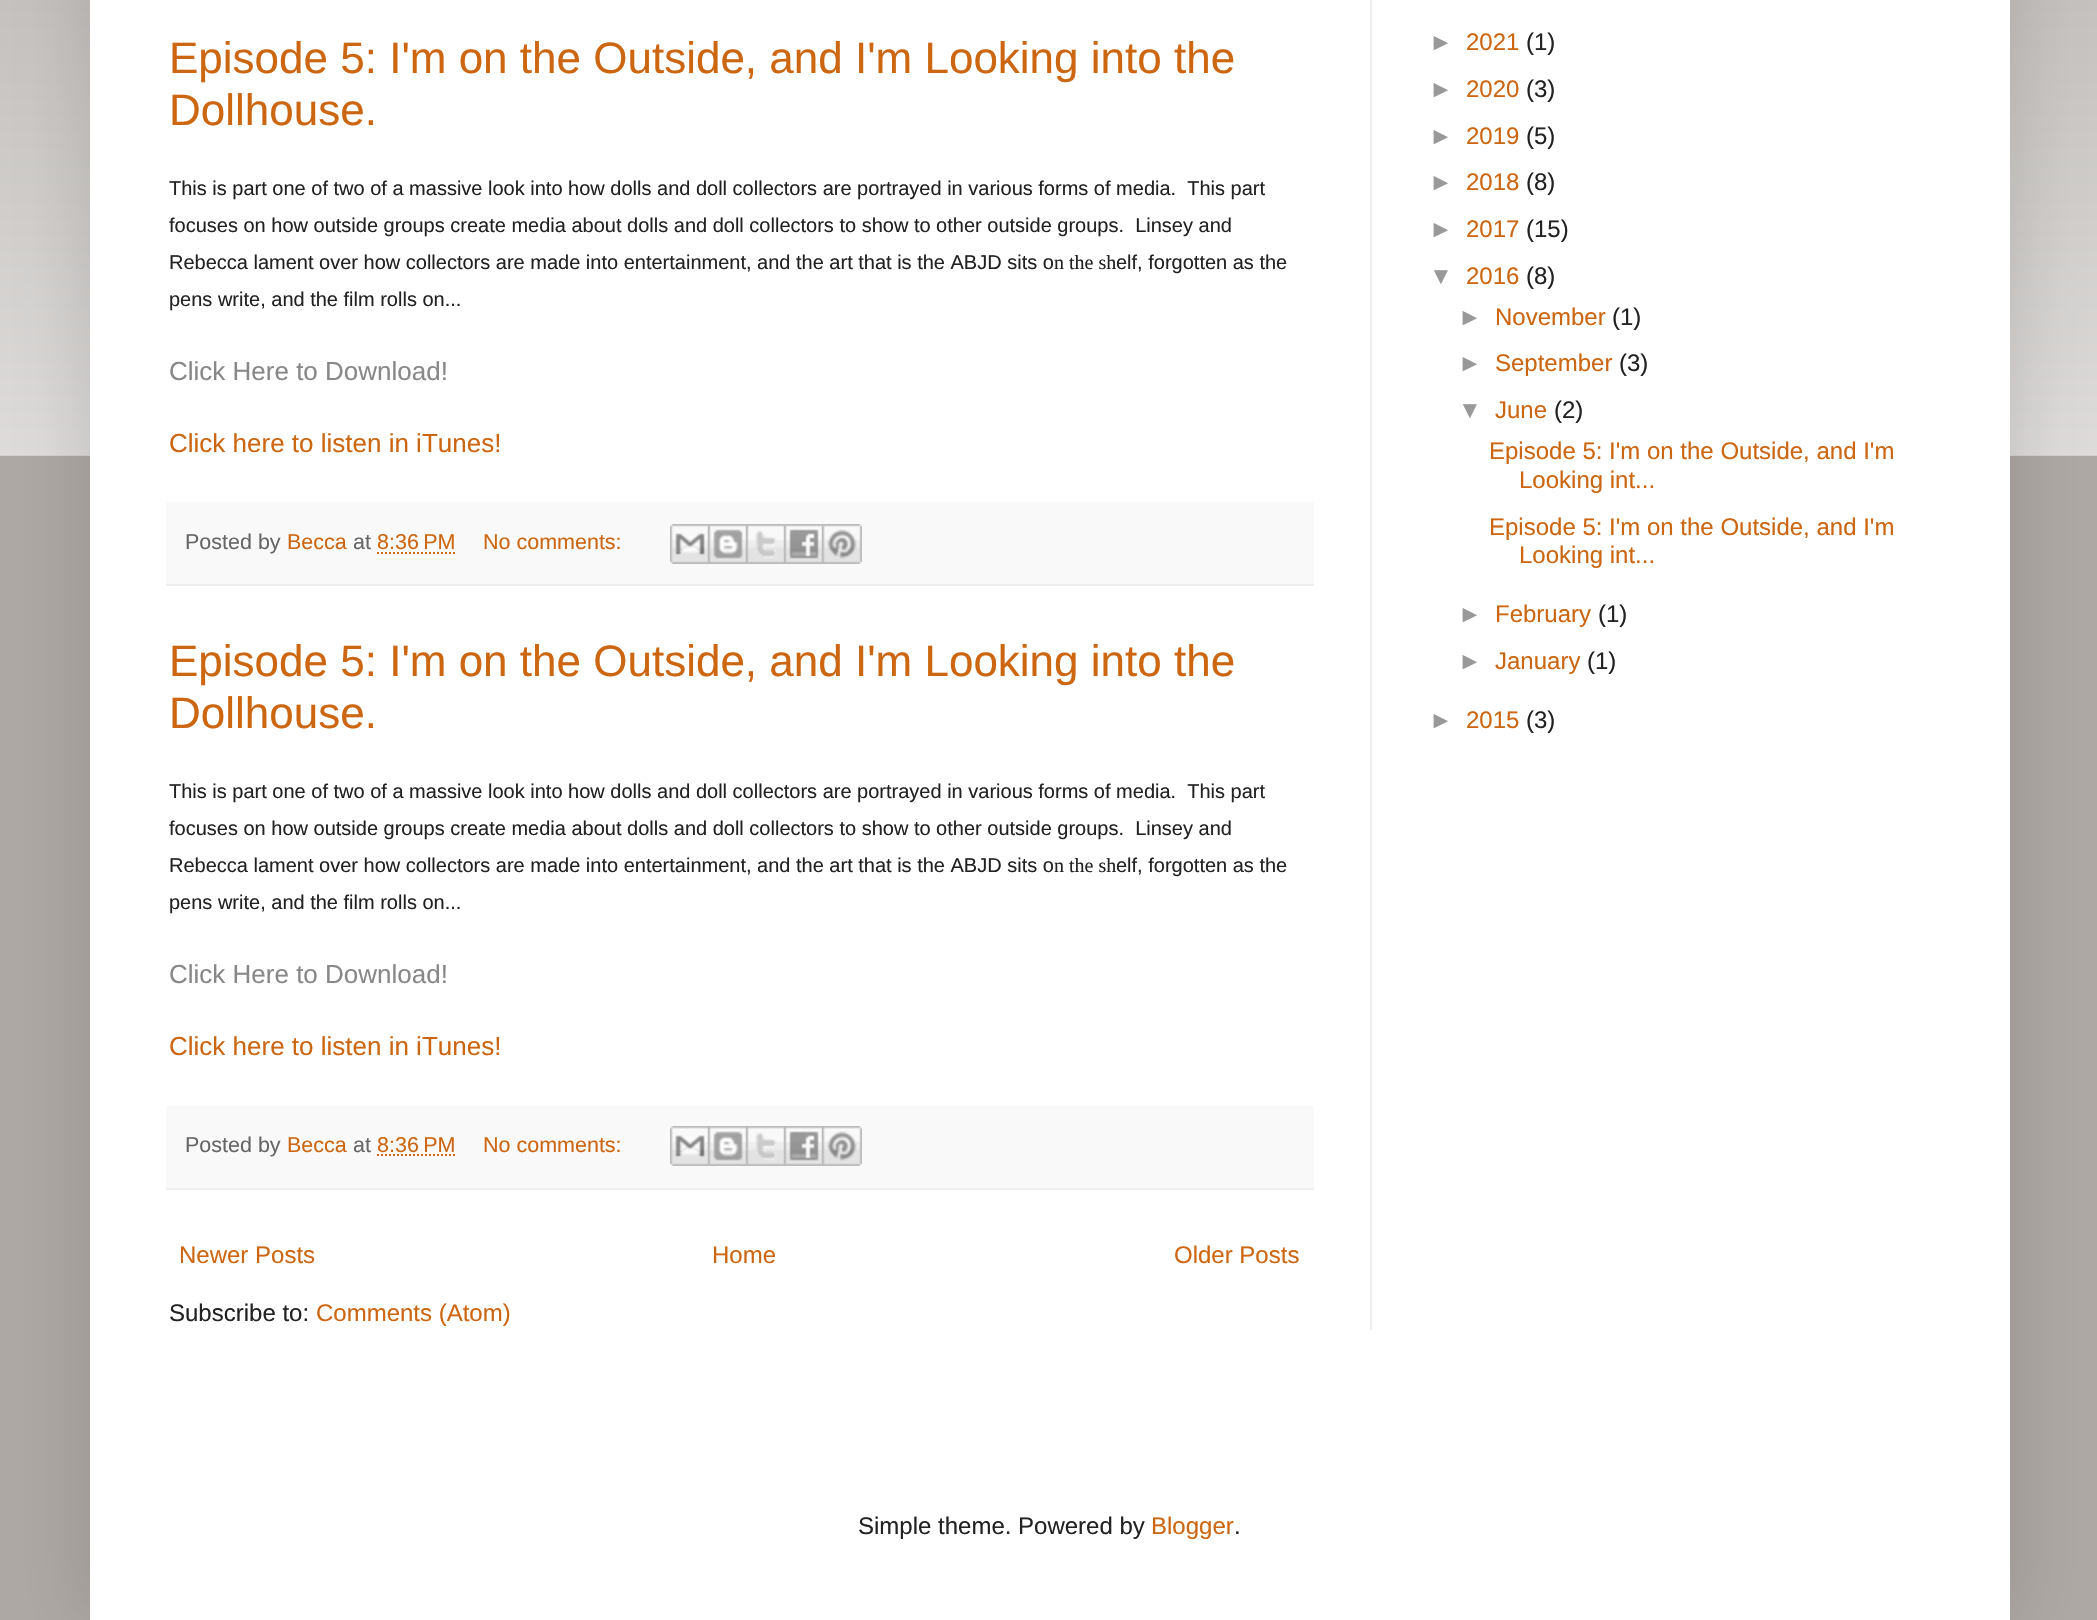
void draw(SkCanvas* canvas) {
  SkPaint paint;
  paint.setAntiAlias(true);
  auto face = [&](const char* family, int weight, float size, bool italic = false) {
    SkFontStyle style(weight, SkFontStyle::kNormal_Width,
      italic ? SkFontStyle::kItalic_Slant : SkFontStyle::kUpright_Slant);
    SkFont result(fontMgr->matchFamilyStyle(family, style), size);
    result.setSubpixel(true);
    return result;
  };
  auto paste = [&](const char* path, float x, float y, float w, float h) {
    auto image = SkImages::DeferredFromEncodedData(SkData::MakeFromFileName(path));
    canvas->drawImageRect(image, SkRect::MakeXYWH(x, y, w, h), SkSamplingOptions());
  };
  auto shape = [&](const char* data, bool evenOdd = false) {
    SkPath result = *SkParsePath::FromSVGString(data);
    if (evenOdd) result.setFillType(SkPathFillType::kEvenOdd);
    return result;
  };
  canvas->clear(0xffaea9a5);
  paste("img/1.png", 0, 0, 2097, 456);
  paint.setColor(0x26000000);
  paint.setMaskFilter(SkMaskFilter::MakeBlur(kNormal_SkBlurStyle, 40));
  canvas->drawRect(SkRect::MakeXYWH(90, -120, 1920, 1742), paint);
  paint.setMaskFilter(nullptr);
  {
    const struct { float x, y, w, h; SkColor color; } items[] = {
      {90, 0, 1920, 1620, 0xffffffff},
      {1370, 0, 2, 1330, 0xffeeeeee},
      {166, 502, 1148, 82, 0xfff9f9f9},
      {166, 584, 1148, 2, 0xffeeeeee},
    };
    for (auto [x, y, w, h, color] : items) {
      paint.setColor(color);
      canvas->drawRect(SkRect::MakeXYWH(x, y, w, h), paint);
    }
  }
  paint.setStroke(true);
  paint.setStrokeWidth(2);
  paint.setColor(0xffcc6611);
  paint.setPathEffect(SkDashPathEffect::Make({{2, 2}}, 0));
  canvas->drawPath(shape("M377 553H456"), paint);
  paint.setPathEffect(nullptr);
  paste("img/2.png", 670, 524, 38, 40);
  paste("img/3.png", 708, 524, 38, 40);
  paste("img/4.png", 746, 524, 38, 40);
  paste("img/5.png", 784, 524, 38, 40);
  paste("img/6.png", 822, 524, 40, 40);
  paint.setStroke(false);
  paint.setColor(0xfff9f9f9);
  canvas->drawRect(SkRect::MakeXYWH(166, 1106, 1148, 82), paint);
  paint.setColor(0xffeeeeee);
  canvas->drawRect(SkRect::MakeXYWH(166, 1188, 1148, 2), paint);
  paint.setStroke(true);
  paint.setColor(0xffcc6611);
  paint.setPathEffect(SkDashPathEffect::Make({{2, 2}}, 0));
  canvas->drawPath(shape("M377 1155H456"), paint);
  paint.setPathEffect(nullptr);
  paste("img/2.png", 670, 1126, 38, 40);
  paste("img/3.png", 708, 1126, 38, 40);
  paste("img/4.png", 746, 1126, 38, 40);
  paste("img/5.png", 784, 1126, 38, 40);
  paste("img/6.png", 822, 1126, 40, 40);
  auto f0 = face("Liberation Sans", 400, 44);
  paint.setStroke(false);
  canvas->drawString("Episode 5: I'm on the Outside, and I'm Looking into the", 169, 73, f0, paint);
  canvas->drawString("Dollhouse.", 169, 125, f0, paint);
  auto f1 = face("Liberation Sans", 400, 20);
  paint.setColor(0xff222222);
  {
    const struct { const char* s; float x, y; } items[] = {
      {"This is part one of two of a massive look into how dolls and doll collectors are portrayed in various forms of media.  This part", 169, 195},
      {"focuses on how outside groups create media about dolls and doll collectors to show to other outside groups.  Linsey and", 169, 232},
      {"Rebecca lament over how collectors are made into entertainment, and the art that is the ABJD sits o", 169, 269},
    };
    for (auto [s, x, y] : items) {
      canvas->drawString(s, x, y, f1, paint);
    }
  }
  auto f2 = face("Liberation Serif", 400, 20);
  canvas->drawString("n the sh", 1054, 269, f2, paint);
  canvas->drawString("elf, forgotten as the", 1116, 269, f1, paint);
  canvas->drawString("pens write, and the film rolls on...", 169, 306, f1, paint);
  auto f3 = face("Liberation Sans", 400, 26);
  paint.setColor(0xff888888);
  canvas->drawString("Click Here to Download!", 169, 380, f3, paint);
  paint.setColor(0xffcc6611);
  canvas->drawString("Click here to listen in iTunes!", 169, 452, f3, paint);
  auto f4 = face("Liberation Sans", 400, 21.5f);
  paint.setColor(0xff666666);
  canvas->drawString("Posted by", 185, 549, f4, paint);
  paint.setColor(0xffcc6611);
  canvas->drawString("Becca", 287, 549, f4, paint);
  paint.setColor(0xff666666);
  canvas->drawString("at", 353, 549, f4, paint);
  paint.setColor(0xffcc6611);
  canvas->drawString("8:36 PM", 377, 549, f4, paint);
  canvas->drawString("No comments:", 483, 549, f4, paint);
  canvas->drawString("Episode 5: I'm on the Outside, and I'm Looking into the", 169, 676, f0, paint);
  canvas->drawString("Dollhouse.", 169, 728, f0, paint);
  paint.setColor(0xff222222);
  {
    const struct { const char* s; float x, y; } items[] = {
      {"This is part one of two of a massive look into how dolls and doll collectors are portrayed in various forms of media.  This part", 169, 798},
      {"focuses on how outside groups create media about dolls and doll collectors to show to other outside groups.  Linsey and", 169, 835},
      {"Rebecca lament over how collectors are made into entertainment, and the art that is the ABJD sits o", 169, 872},
    };
    for (auto [s, x, y] : items) {
      canvas->drawString(s, x, y, f1, paint);
    }
  }
  canvas->drawString("n the sh", 1054, 872, f2, paint);
  canvas->drawString("elf, forgotten as the", 1116, 872, f1, paint);
  canvas->drawString("pens write, and the film rolls on...", 169, 909, f1, paint);
  paint.setColor(0xff888888);
  canvas->drawString("Click Here to Download!", 169, 983, f3, paint);
  paint.setColor(0xffcc6611);
  canvas->drawString("Click here to listen in iTunes!", 169, 1055, f3, paint);
  paint.setColor(0xff666666);
  canvas->drawString("Posted by", 185, 1152, f4, paint);
  paint.setColor(0xffcc6611);
  canvas->drawString("Becca", 287, 1152, f4, paint);
  paint.setColor(0xff666666);
  canvas->drawString("at", 353, 1152, f4, paint);
  paint.setColor(0xffcc6611);
  canvas->drawString("8:36 PM", 377, 1152, f4, paint);
  canvas->drawString("No comments:", 483, 1152, f4, paint);
  auto f5 = face("Liberation Sans", 400, 24);
  {
    const struct { const char* s; float x, y; } items[] = {
      {"Newer Posts", 179, 1263},
      {"Home", 712, 1263},
      {"Older Posts", 1174, 1263},
    };
    for (auto [s, x, y] : items) {
      canvas->drawString(s, x, y, f5, paint);
    }
  }
  paint.setColor(0xff222222);
  canvas->drawString("Subscribe to:", 169, 1321, f5, paint);
  paint.setColor(0xffcc6611);
  canvas->drawString("Comments (Atom)", 316, 1321, f5, paint);
  paint.setColor(0xff999999);
  canvas->drawString("►", 1429, 50, f5, paint);
  paint.setColor(0xffcc6611);
  canvas->drawString("2021", 1466, 50, f5, paint);
  paint.setColor(0xff222222);
  canvas->drawString("(1)", 1526, 50, f5, paint);
  paint.setColor(0xff999999);
  canvas->drawString("►", 1429, 97, f5, paint);
  paint.setColor(0xffcc6611);
  canvas->drawString("2020", 1466, 97, f5, paint);
  paint.setColor(0xff222222);
  canvas->drawString("(3)", 1526, 97, f5, paint);
  paint.setColor(0xff999999);
  canvas->drawString("►", 1429, 144, f5, paint);
  paint.setColor(0xffcc6611);
  canvas->drawString("2019", 1466, 144, f5, paint);
  paint.setColor(0xff222222);
  canvas->drawString("(5)", 1526, 144, f5, paint);
  paint.setColor(0xff999999);
  canvas->drawString("►", 1429, 190, f5, paint);
  paint.setColor(0xffcc6611);
  canvas->drawString("2018", 1466, 190, f5, paint);
  paint.setColor(0xff222222);
  canvas->drawString("(8)", 1526, 190, f5, paint);
  paint.setColor(0xff999999);
  canvas->drawString("►", 1429, 237, f5, paint);
  paint.setColor(0xffcc6611);
  canvas->drawString("2017", 1466, 237, f5, paint);
  paint.setColor(0xff222222);
  canvas->drawString("(15)", 1526, 237, f5, paint);
  paint.setColor(0xff999999);
  canvas->drawString("▼", 1429, 284, f5, paint);
  paint.setColor(0xffcc6611);
  canvas->drawString("2016", 1466, 284, f5, paint);
  paint.setColor(0xff222222);
  canvas->drawString("(8)", 1526, 284, f5, paint);
  paint.setColor(0xff999999);
  canvas->drawString("►", 1458, 325, f5, paint);
  paint.setColor(0xffcc6611);
  canvas->drawString("November", 1495, 325, f5, paint);
  paint.setColor(0xff222222);
  canvas->drawString("(1)", 1612, 325, f5, paint);
  paint.setColor(0xff999999);
  canvas->drawString("►", 1458, 371, f5, paint);
  paint.setColor(0xffcc6611);
  canvas->drawString("September", 1495, 371, f5, paint);
  paint.setColor(0xff222222);
  canvas->drawString("(3)", 1619, 371, f5, paint);
  paint.setColor(0xff999999);
  canvas->drawString("▼", 1458, 418, f5, paint);
  paint.setColor(0xffcc6611);
  canvas->drawString("June", 1495, 418, f5, paint);
  paint.setColor(0xff222222);
  canvas->drawString("(2)", 1554, 418, f5, paint);
  paint.setColor(0xffcc6611);
  {
    const struct { const char* s; float x, y; } items[] = {
      {"Episode 5: I'm on the Outside, and I'm", 1489, 459},
      {"Looking int...", 1519, 488},
      {"Episode 5: I'm on the Outside, and I'm", 1489, 535},
      {"Looking int...", 1519, 563},
    };
    for (auto [s, x, y] : items) {
      canvas->drawString(s, x, y, f5, paint);
    }
  }
  paint.setColor(0xff999999);
  canvas->drawString("►", 1458, 622, f5, paint);
  paint.setColor(0xffcc6611);
  canvas->drawString("February", 1495, 622, f5, paint);
  paint.setColor(0xff222222);
  canvas->drawString("(1)", 1598, 622, f5, paint);
  paint.setColor(0xff999999);
  canvas->drawString("►", 1458, 669, f5, paint);
  paint.setColor(0xffcc6611);
  canvas->drawString("January", 1495, 669, f5, paint);
  paint.setColor(0xff222222);
  canvas->drawString("(1)", 1587, 669, f5, paint);
  paint.setColor(0xff999999);
  canvas->drawString("►", 1429, 728, f5, paint);
  paint.setColor(0xffcc6611);
  canvas->drawString("2015", 1466, 728, f5, paint);
  paint.setColor(0xff222222);
  canvas->drawString("(3)", 1526, 728, f5, paint);
  canvas->drawString("Simple theme. Powered by", 858, 1534, f5, paint);
  paint.setColor(0xffcc6611);
  canvas->drawString("Blogger", 1151, 1534, f5, paint);
  paint.setColor(0xff222222);
  canvas->drawString(".", 1234, 1534, f5, paint);
}
